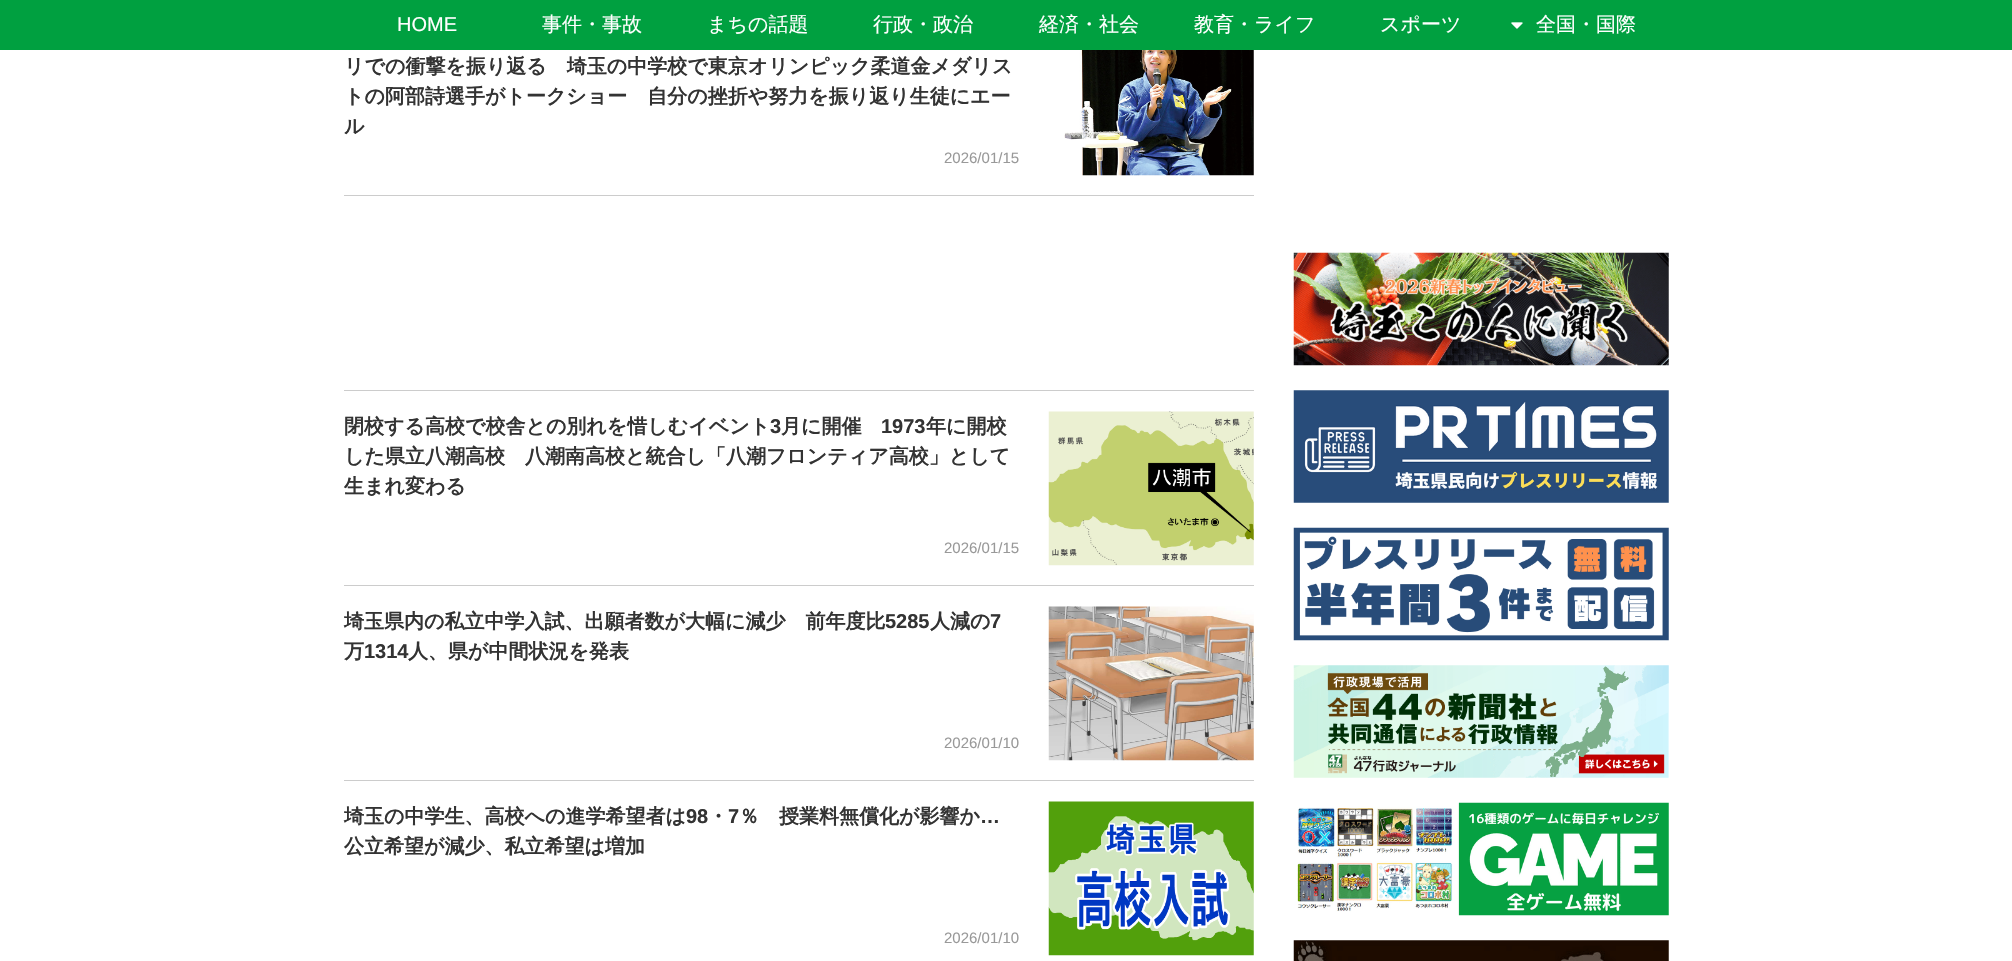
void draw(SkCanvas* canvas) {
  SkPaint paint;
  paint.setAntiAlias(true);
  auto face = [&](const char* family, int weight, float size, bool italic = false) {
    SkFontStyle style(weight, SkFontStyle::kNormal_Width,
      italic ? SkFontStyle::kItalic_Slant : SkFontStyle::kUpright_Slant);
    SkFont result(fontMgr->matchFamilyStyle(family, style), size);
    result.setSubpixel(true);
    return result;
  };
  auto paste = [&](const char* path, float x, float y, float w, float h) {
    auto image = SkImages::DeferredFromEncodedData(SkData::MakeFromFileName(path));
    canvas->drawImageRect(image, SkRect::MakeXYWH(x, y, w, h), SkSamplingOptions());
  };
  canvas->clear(0xffffffff);
  paint.setColor(0xff00a040);
  canvas->drawRect(SkRect::MakeXYWH(0, 0, 2012, 50), paint);
  paste("img/1.png", 1511, 22, 12, 7);
  paint.setColor(0xffcccccc);
  canvas->drawRect(SkRect::MakeXYWH(344, 195, 910, 1), paint);
  paste("img/2.png", 1064, 50, 190, 126);
  canvas->drawRect(SkRect::MakeXYWH(344, 390, 910, 1), paint);
  canvas->drawRect(SkRect::MakeXYWH(344, 585, 910, 1), paint);
  paste("img/3.png", 1048, 411, 206, 155);
  canvas->drawRect(SkRect::MakeXYWH(344, 780, 910, 1), paint);
  paste("img/4.png", 1048, 606, 206, 155);
  paste("img/5.png", 1048, 801, 206, 155);
  paste("img/6.png", 1293, 252, 376, 114);
  paste("img/7.png", 1293, 390, 376, 113);
  paste("img/8.png", 1293, 527, 376, 114);
  paste("img/9.png", 1293, 665, 376, 113);
  paste("img/10.png", 1297, 802, 372, 114);
  paste("img/11.png", 1293, 940, 376, 21);
  auto f0 = face("Liberation Sans", 400, 20);
  paint.setColor(0xffffffff);
  canvas->drawString("HOME", 397, 31, f0, paint);
  auto f1 = face("WenQuanYi Zen Hei", 500, 20);
  {
    const struct { const char* s; float x, y; } items[] = {
      {"事件・事故", 542, 31},
      {"まちの話題", 707, 31},
      {"行政・政治", 873, 31},
      {"経済・社会", 1039, 31},
      {"教育・ライフ", 1194, 31},
      {"スポーツ", 1380, 31},
      {"全国・国際", 1536, 31},
    };
    for (auto [s, x, y] : items) {
      canvas->drawString(s, x, y, f1, paint);
    }
  }
  auto f2 = face("WenQuanYi Zen Hei", 700, 20);
  paint.setColor(0xff333333);
  {
    const struct { const char* s; float x, y; } items[] = {
      {"リでの衝撃を振り返る　埼玉の中学校で東京オリンピック柔道金メダリス", 344, 73},
      {"トの阿部詩選手がトークショー　自分の挫折や努力を振り返り生徒にエー", 344, 103},
      {"ル", 344, 133},
    };
    for (auto [s, x, y] : items) {
      canvas->drawString(s, x, y, f2, paint);
    }
  }
  auto f3 = face("Liberation Sans", 400, 15);
  paint.setColor(0xff999999);
  canvas->drawString("2026/01/15", 944, 163, f3, paint);
  paint.setColor(0xff333333);
  canvas->drawString("閉校する高校で校舎との別れを惜しむイベント", 344, 433, f2, paint);
  auto f4 = face("Liberation Sans", 700, 20);
  canvas->drawString("3", 770, 433, f4, paint);
  canvas->drawString("月に開催", 781, 433, f2, paint);
  canvas->drawString("1973", 881, 433, f4, paint);
  {
    const struct { const char* s; float x, y; } items[] = {
      {"年に開校", 926, 433},
      {"した県立八潮高校　八潮南高校と統合し「八潮フロンティア高校」として", 344, 463},
      {"生まれ変わる", 344, 493},
    };
    for (auto [s, x, y] : items) {
      canvas->drawString(s, x, y, f2, paint);
    }
  }
  paint.setColor(0xff999999);
  canvas->drawString("2026/01/15", 944, 553, f3, paint);
  paint.setColor(0xff333333);
  canvas->drawString("埼玉県内の私立中学入試、出願者数が大幅に減少　前年度比", 344, 628, f2, paint);
  canvas->drawString("5285", 885, 628, f4, paint);
  canvas->drawString("人減の", 930, 628, f2, paint);
  canvas->drawString("7", 990, 628, f4, paint);
  canvas->drawString("万", 344, 658, f2, paint);
  canvas->drawString("1314", 364, 658, f4, paint);
  canvas->drawString("人、県が中間状況を発表", 408, 658, f2, paint);
  paint.setColor(0xff999999);
  canvas->drawString("2026/01/10", 944, 748, f3, paint);
  paint.setColor(0xff333333);
  canvas->drawString("埼玉の中学生、高校への進学希望者は", 344, 823, f2, paint);
  canvas->drawString("98", 686, 823, f4, paint);
  canvas->drawString("・", 708, 823, f2, paint);
  canvas->drawString("7", 728, 823, f4, paint);
  canvas->drawString("％　授業料無償化が影響か", 739, 823, f2, paint);
  canvas->drawString("…", 980, 823, f4, paint);
  canvas->drawString("公立希望が減少、私立希望は増加", 344, 853, f2, paint);
  paint.setColor(0xff999999);
  canvas->drawString("2026/01/10", 944, 943, f3, paint);
}
